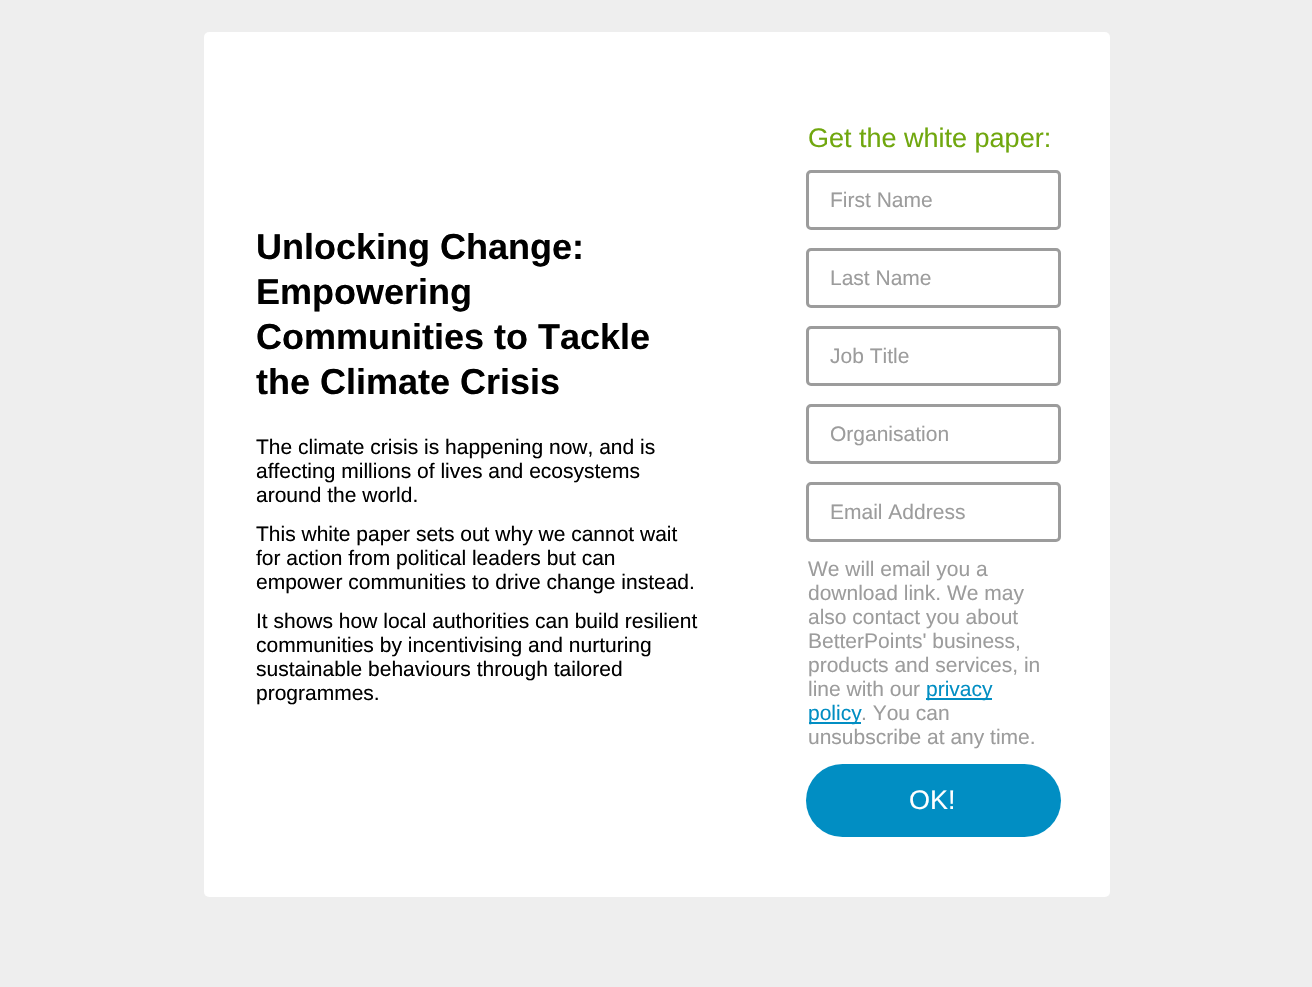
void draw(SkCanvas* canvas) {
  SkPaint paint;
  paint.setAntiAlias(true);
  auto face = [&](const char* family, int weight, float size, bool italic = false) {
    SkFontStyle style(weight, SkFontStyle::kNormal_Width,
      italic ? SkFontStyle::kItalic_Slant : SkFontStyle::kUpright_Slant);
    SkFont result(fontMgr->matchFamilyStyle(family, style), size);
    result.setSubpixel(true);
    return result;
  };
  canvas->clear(0xffeeeeee);
  paint.setColor(0xffffffff);
  canvas->drawRoundRect(SkRect::MakeXYWH(204, 32, 906, 865), 5, 5, paint);
  paint.setStroke(true);
  paint.setStrokeWidth(3);
  paint.setColor(0xff9c9c9c);
  canvas->drawRoundRect(SkRect::MakeXYWH(807.5f, 171.5f, 252, 57), 3.5f, 3.5f, paint);
  canvas->drawRoundRect(SkRect::MakeXYWH(807.5f, 249.5f, 252, 57), 3.5f, 3.5f, paint);
  canvas->drawRoundRect(SkRect::MakeXYWH(807.5f, 327.5f, 252, 57), 3.5f, 3.5f, paint);
  canvas->drawRoundRect(SkRect::MakeXYWH(807.5f, 405.5f, 252, 57), 3.5f, 3.5f, paint);
  canvas->drawRoundRect(SkRect::MakeXYWH(807.5f, 483.5f, 252, 57), 3.5f, 3.5f, paint);
  paint.setStroke(false);
  paint.setColor(0xff018ec3);
  canvas->drawRect(SkRect::MakeXYWH(926, 698, 66, 2), paint);
  canvas->drawRect(SkRect::MakeXYWH(809, 722, 52, 2), paint);
  canvas->drawRoundRect(SkRect::MakeXYWH(806, 764, 255, 73), 36.5f, 36.5f, paint);
  auto f0 = face("Liberation Sans", 700, 36);
  paint.setColor(0xff000000);
  {
    const struct { const char* s; float x, y; } items[] = {
      {"Unlocking Change:", 256, 259},
      {"Empowering", 256, 304},
      {"Communities to Tackle", 256, 349},
      {"the Climate Crisis", 256, 394},
    };
    for (auto [s, x, y] : items) {
      canvas->drawString(s, x, y, f0, paint);
    }
  }
  auto f1 = face("Liberation Sans", 400, 21);
  {
    const struct { const char* s; float x, y; } items[] = {
      {"The climate crisis is happening now, and is", 256, 454},
      {"affecting millions of lives and ecosystems", 256, 478},
      {"around the world.", 256, 502},
      {"This white paper sets out why we cannot wait", 256, 541},
      {"for action from political leaders but can", 256, 565},
      {"empower communities to drive change instead.", 256, 589},
      {"It shows how local authorities can build resilient", 256, 628},
      {"communities by incentivising and nurturing", 256, 652},
      {"sustainable behaviours through tailored", 256, 676},
      {"programmes.", 256, 700},
    };
    for (auto [s, x, y] : items) {
      canvas->drawString(s, x, y, f1, paint);
    }
  }
  auto f2 = face("Liberation Sans", 400, 27);
  paint.setColor(0xff70a70e);
  canvas->drawString("Get the white paper:", 808, 147, f2, paint);
  paint.setColor(0xff9c9c9c);
  {
    const struct { const char* s; float x, y; } items[] = {
      {"First Name", 830, 207},
      {"Last Name", 830, 285},
      {"Job Title", 830, 363},
      {"Organisation", 830, 441},
      {"Email Address", 830, 519},
      {"We will email you a", 808, 576},
      {"download link. We may", 808, 600},
      {"also contact you about", 808, 624},
      {"BetterPoints' business,", 808, 648},
      {"products and services, in", 808, 672},
      {"line with our", 808, 696},
    };
    for (auto [s, x, y] : items) {
      canvas->drawString(s, x, y, f1, paint);
    }
  }
  paint.setColor(0xff018ec3);
  canvas->drawString("privacy", 926, 696, f1, paint);
  canvas->drawString("policy", 808, 720, f1, paint);
  paint.setColor(0xff9c9c9c);
  canvas->drawString(". You can", 861, 720, f1, paint);
  canvas->drawString("unsubscribe at any time.", 808, 744, f1, paint);
  paint.setColor(0xffffffff);
  canvas->drawString("OK!", 909, 809, f2, paint);
}
